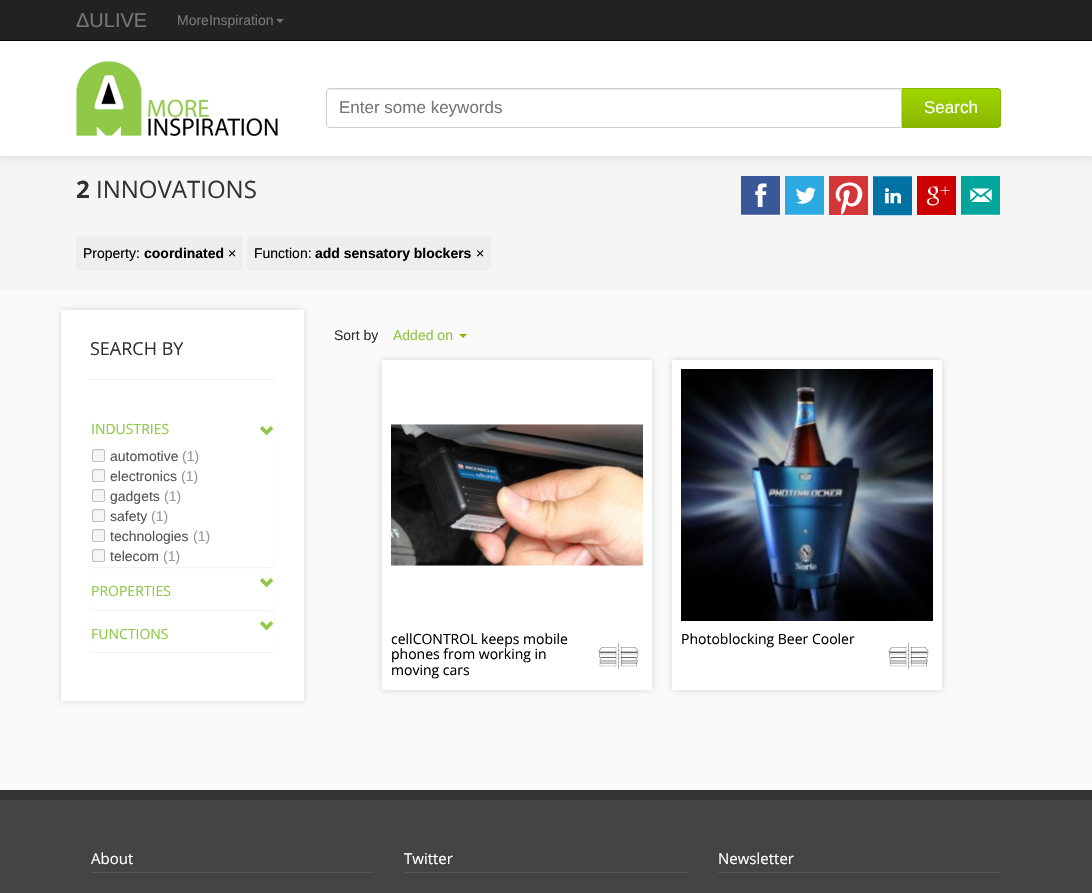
void draw(SkCanvas* canvas) {
  SkPaint paint;
  paint.setAntiAlias(true);
  auto face = [&](const char* family, int weight, float size, bool italic = false) {
    SkFontStyle style(weight, SkFontStyle::kNormal_Width,
      italic ? SkFontStyle::kItalic_Slant : SkFontStyle::kUpright_Slant);
    SkFont result(fontMgr->matchFamilyStyle(family, style), size);
    result.setSubpixel(true);
    return result;
  };
  auto paste = [&](const char* path, float x, float y, float w, float h) {
    auto image = SkImages::DeferredFromEncodedData(SkData::MakeFromFileName(path));
    canvas->drawImageRect(image, SkRect::MakeXYWH(x, y, w, h), SkSamplingOptions());
  };
  auto shape = [&](const char* data, bool evenOdd = false) {
    SkPath result = *SkParsePath::FromSVGString(data);
    if (evenOdd) result.setFillType(SkPathFillType::kEvenOdd);
    return result;
  };
  canvas->clear(0xfffafafa);
  paint.setColor(0xfff5f5f5);
  canvas->drawRect(SkRect::MakeXYWH(0, 156, 1092, 134), paint);
  paint.setColor(0x26000000);
  paint.setMaskFilter(SkMaskFilter::MakeBlur(kNormal_SkBlurStyle, 5));
  canvas->drawRect(SkRect::MakeXYWH(0, 40, 1092, 116), paint);
  paint.setMaskFilter(nullptr);
  paint.setColor(0xff222222);
  canvas->drawRect(SkRect::MakeXYWH(0, 0, 1092, 40), paint);
  paint.setColor(0xff080808);
  canvas->drawRect(SkRect::MakeXYWH(0, 40, 1092, 1), paint);
  paint.setColor(0xff777777);
  canvas->drawPath(shape("M276 19H284L280 23Z"), paint);
  paint.setColor(0xffffffff);
  canvas->drawRect(SkRect::MakeXYWH(0, 41, 1092, 115), paint);
  paste("img/1.png", 76, 61, 202, 75);
  paint.setColor(0xff8ab800);
  canvas->drawPath(shape("M901 88H997C999 88 1001 90 1001 92V124C1001 126 999 128 997 128H901Z"), paint);
  canvas->save();
  canvas->clipPath(shape("M901 88H997C999 88 1001 90 1001 92V124C1001 126 999 128 997 128H901Z"), true);
  {
    const SkColor colors[] = {0xffa0d600, 0xff89b700};
    const float stops[] = {0, 1};
    const SkPoint ends[] = {{951, 89}, {951, 127}};
    paint.setShader(SkGradientShader::MakeLinear(ends, colors, stops, 2, SkTileMode::kClamp));
    paint.setAlpha(255);
  }
  canvas->drawRect(SkRect::MakeXYWH(902, 89, 99, 38), paint);
  canvas->restore();
  paint.setShader(nullptr);
  paint.setColor(0xff89b700);
  canvas->drawPath(shape("M901 88L902 89H997L999 90L1000 89L997 88Z"), paint);
  canvas->drawPath(shape("M1001 124V92C1001 91 1000.5 90 1000 89L999 90C1000 90 1000 91 1000 92V124C1000 125 1000 126 999 126L1000 127C1000.5 126 1001 125 1001 124Z"), paint);
  paint.setColor(0xff84b000);
  canvas->drawPath(shape("M997 128L1000 127L999 126L997 127H902L901 128Z"), paint);
  paint.setColor(0xffffffff);
  canvas->drawPath(shape("M330 88H902V128H330C328 128 326 126 326 124V92C326 90 328 88 330 88Z"), paint);
  paint.setColor(0xffececec);
  canvas->drawPath(shape("M330 90H901V89H330C328 89 327 90 327 92V93C327 91 328 90 330 90Z"), paint);
  paint.setStroke(true);
  paint.setStrokeWidth(1);
  paint.setColor(0xffcccccc);
  canvas->drawPath(shape("M330 88.5H901.5V127.5H330C328 127.5 326.5 126 326.5 124V92C326.5 90 328 88.5 330 88.5Z"), paint);
  paste("img/2.png", 741, 176, 39, 40);
  paste("img/3.png", 785, 176, 39, 40);
  paste("img/4.png", 829, 176, 39, 40);
  paste("img/5.png", 873, 176, 39, 40);
  paste("img/6.png", 917, 176, 39, 40);
  paste("img/7.png", 961, 176, 39, 40);
  paint.setStroke(false);
  paint.setColor(0xffeeeeee);
  canvas->drawRoundRect(SkRect::MakeXYWH(76, 236, 167, 34), 3, 3, paint);
  canvas->drawRoundRect(SkRect::MakeXYWH(247, 236, 244, 34), 3, 3, paint);
  paint.setColor(0xff89b700);
  canvas->drawPath(shape("M459 334H467L463 338Z"), paint);
  paint.setColor(0x26000000);
  paint.setMaskFilter(SkMaskFilter::MakeBlur(kNormal_SkBlurStyle, 3));
  canvas->drawRect(SkRect::MakeXYWH(61, 310, 243, 391), paint);
  paint.setMaskFilter(nullptr);
  paint.setColor(0xffffffff);
  canvas->drawRect(SkRect::MakeXYWH(61, 310, 243, 391), paint);
  paint.setColor(0xffeeeeee);
  canvas->drawRect(SkRect::MakeXYWH(90, 379, 185, 1), paint);
  paint.setColor(0x0d000000);
  paint.setMaskFilter(SkMaskFilter::MakeBlur(kNormal_SkBlurStyle, 0.5f));
  canvas->drawRoundRect(SkRect::MakeXYWH(90, 411, 185, 157), 4, 4, paint);
  paint.setMaskFilter(nullptr);
  paint.setColor(0xffffffff);
  canvas->drawRoundRect(SkRect::MakeXYWH(90, 410, 185, 157), 4, 4, paint);
  paste("img/8.png", 259, 426, 15, 10);
  paste("img/9.png", 92, 449, 13, 13);
  paste("img/9.png", 92, 469, 13, 13);
  paste("img/9.png", 92, 489, 13, 13);
  paste("img/9.png", 92, 509, 13, 13);
  paste("img/9.png", 92, 529, 13, 13);
  paste("img/9.png", 92, 549, 13, 13);
  paint.setColor(0x0d000000);
  paint.setMaskFilter(SkMaskFilter::MakeBlur(kNormal_SkBlurStyle, 0.5f));
  canvas->drawRoundRect(SkRect::MakeXYWH(90, 573, 185, 38), 4, 4, paint);
  paint.setMaskFilter(nullptr);
  paint.setColor(0xffffffff);
  canvas->drawRoundRect(SkRect::MakeXYWH(90, 572, 185, 38), 4, 4, paint);
  paste("img/8.png", 259, 578, 15, 10);
  paint.setColor(0x0d000000);
  paint.setMaskFilter(SkMaskFilter::MakeBlur(kNormal_SkBlurStyle, 0.5f));
  canvas->drawRoundRect(SkRect::MakeXYWH(90, 616, 185, 37), 4, 4, paint);
  paint.setMaskFilter(nullptr);
  paint.setColor(0xffffffff);
  canvas->drawRoundRect(SkRect::MakeXYWH(90, 615, 185, 37), 4, 4, paint);
  paste("img/8.png", 259, 621, 15, 10);
  paint.setColor(0x26000000);
  paint.setMaskFilter(SkMaskFilter::MakeBlur(kNormal_SkBlurStyle, 3));
  canvas->drawRect(SkRect::MakeXYWH(382, 360, 270, 330), paint);
  paint.setMaskFilter(nullptr);
  paint.setColor(0xffffffff);
  canvas->drawRect(SkRect::MakeXYWH(382, 360, 270, 330), paint);
  paste("img/10.png", 391, 424, 252, 142);
  paste("img/11.png", 598, 642, 41, 28);
  paint.setColor(0x26000000);
  paint.setMaskFilter(SkMaskFilter::MakeBlur(kNormal_SkBlurStyle, 3));
  canvas->drawRect(SkRect::MakeXYWH(672, 360, 270, 330), paint);
  paint.setMaskFilter(nullptr);
  paint.setColor(0xffffffff);
  canvas->drawRect(SkRect::MakeXYWH(672, 360, 270, 330), paint);
  paste("img/12.png", 681, 369, 252, 252);
  paste("img/11.png", 888, 642, 41, 28);
  {
    const struct { float x, y, w, h; SkColor color; } items[] = {
      {0, 800, 1092, 93, 0xff444444},
      {0, 790, 1092, 10, 0xff333333},
      {91, 872, 283, 1, 0xff555555},
      {404, 872, 284, 1, 0xff555555},
      {718, 872, 283, 1, 0xff555555},
    };
    for (auto [x, y, w, h, color] : items) {
      paint.setColor(color);
      canvas->drawRect(SkRect::MakeXYWH(x, y, w, h), paint);
    }
  }
  auto f0 = face("Liberation Sans", 400, 20);
  paint.setColor(0xff777777);
  canvas->drawString("ΔULIVE", 76, 27, f0, paint);
  auto f1 = face("Liberation Sans", 400, 14);
  canvas->drawString("MoreInspiration", 177, 25, f1, paint);
  auto f2 = face("Liberation Sans", 400, 17);
  canvas->drawString("Enter some keywords", 339, 113, f2, paint);
  paint.setColor(0xffffffff);
  canvas->drawString("Search", 924, 113, f2, paint);
  auto f3 = face("Open Sans", 700, 24);
  paint.setColor(0xff333333);
  canvas->drawString("2", 76, 198, f3, paint);
  auto f4 = face("Open Sans", 400, 24);
  canvas->drawString("INNOVATIONS", 96, 198, f4, paint);
  paint.setColor(0xff000000);
  canvas->drawString("Property:", 83, 258, f1, paint);
  auto f5 = face("Liberation Sans", 700, 14);
  canvas->drawString("coordinated", 144, 258, f5, paint);
  canvas->drawString("×", 228, 258, f1, paint);
  canvas->drawString("Function:", 254, 258, f1, paint);
  canvas->drawString("add sensatory blockers", 315, 258, f5, paint);
  canvas->drawString("×", 476, 258, f1, paint);
  paint.setColor(0xff333333);
  canvas->drawString("Sort by", 334, 340, f1, paint);
  paint.setColor(0xff90c848);
  canvas->drawString("Added on", 393, 340, f1, paint);
  auto f6 = face("Open Sans", 400, 18);
  paint.setColor(0xff333333);
  canvas->drawString("SEARCH BY", 90, 355, f6, paint);
  auto f7 = face("Open Sans", 400, 14);
  paint.setColor(0xff90c848);
  canvas->drawString("INDUSTRIES", 91, 434, f7, paint);
  paint.setColor(0xff555555);
  canvas->drawString("automotive", 110, 461, f1, paint);
  paint.setColor(0xff999999);
  canvas->drawString("(1)", 182, 461, f1, paint);
  paint.setColor(0xff555555);
  canvas->drawString("electronics", 110, 481, f1, paint);
  paint.setColor(0xff999999);
  canvas->drawString("(1)", 181, 481, f1, paint);
  paint.setColor(0xff555555);
  canvas->drawString("gadgets", 110, 501, f1, paint);
  paint.setColor(0xff999999);
  canvas->drawString("(1)", 164, 501, f1, paint);
  paint.setColor(0xff555555);
  canvas->drawString("safety", 110, 521, f1, paint);
  paint.setColor(0xff999999);
  canvas->drawString("(1)", 151, 521, f1, paint);
  paint.setColor(0xff555555);
  canvas->drawString("technologies", 110, 541, f1, paint);
  paint.setColor(0xff999999);
  canvas->drawString("(1)", 193, 541, f1, paint);
  paint.setColor(0xff555555);
  canvas->drawString("telecom", 110, 561, f1, paint);
  paint.setColor(0xff999999);
  canvas->drawString("(1)", 163, 561, f1, paint);
  paint.setColor(0xff90c848);
  canvas->drawString("PROPERTIES", 91, 596, f7, paint);
  canvas->drawString("FUNCTIONS", 91, 639, f7, paint);
  paint.setColor(0xff000000);
  {
    const struct { const char* s; float x, y; } items[] = {
      {"cellCONTROL keeps mobile", 391, 644},
      {"phones from working in", 391, 659},
      {"moving cars", 391, 675},
      {"Photoblocking Beer Cooler", 681, 644},
    };
    for (auto [s, x, y] : items) {
      canvas->drawString(s, x, y, f7, paint);
    }
  }
  auto f8 = face("Open Sans", 400, 15);
  paint.setColor(0xffffffff);
  {
    const struct { const char* s; float x, y; } items[] = {
      {"About", 91, 864},
      {"Twitter", 404, 864},
      {"Newsletter", 718, 864},
    };
    for (auto [s, x, y] : items) {
      canvas->drawString(s, x, y, f8, paint);
    }
  }
}
